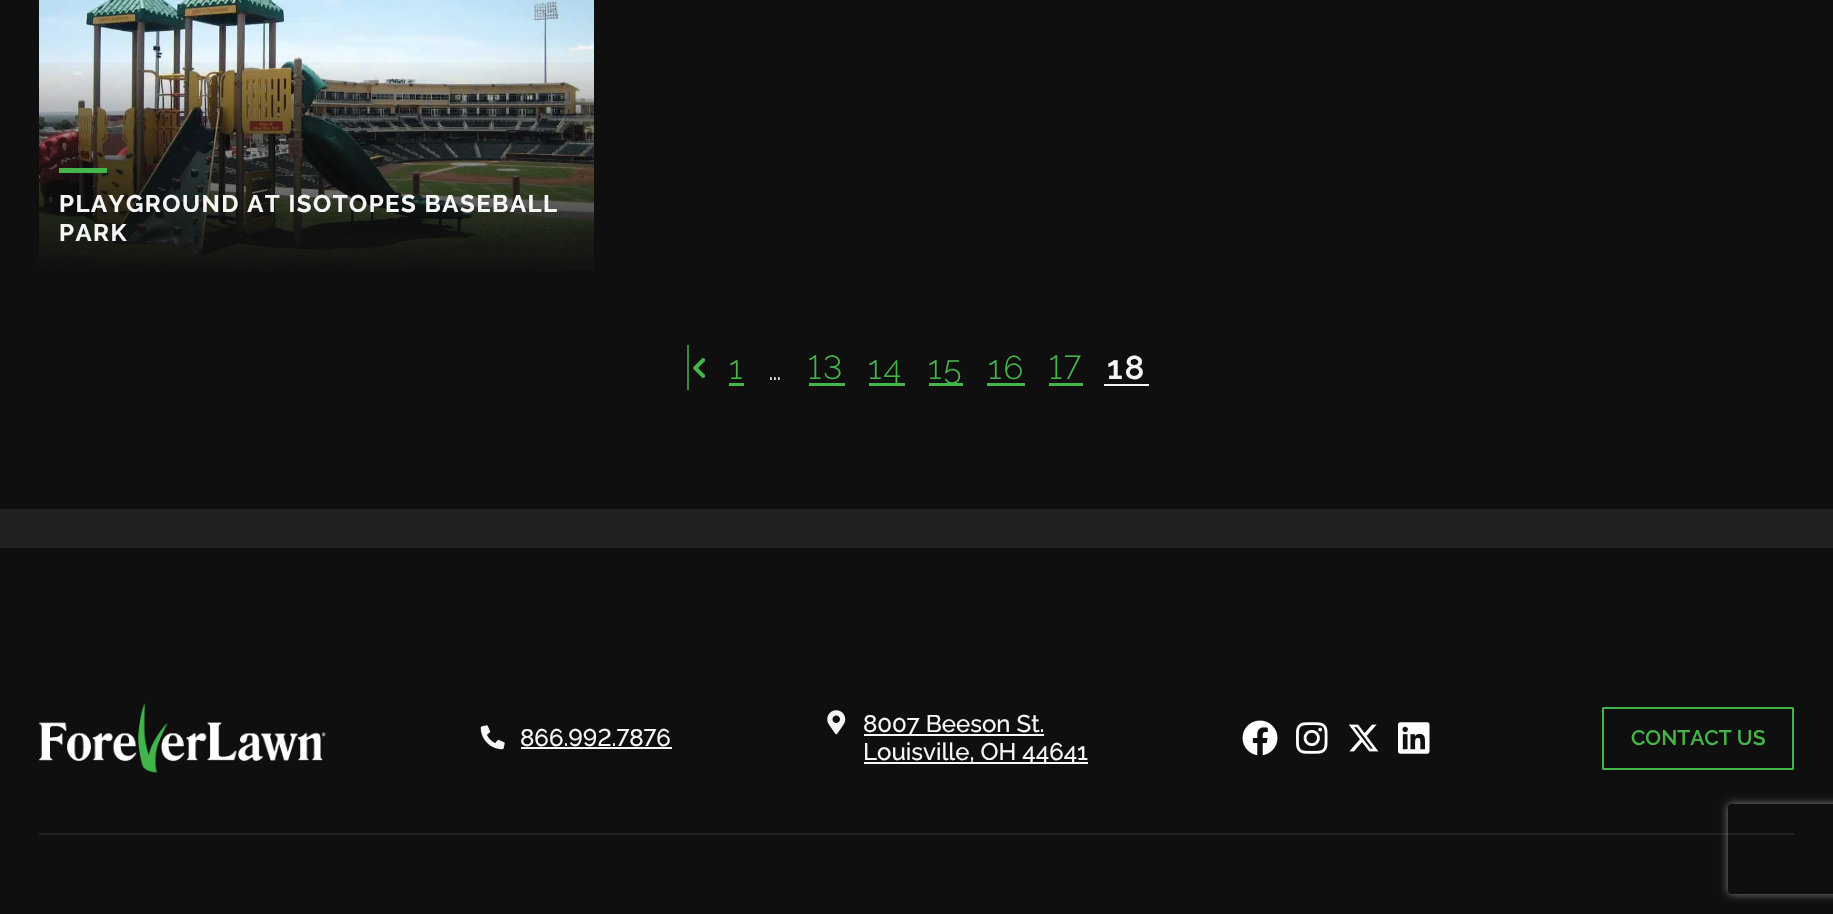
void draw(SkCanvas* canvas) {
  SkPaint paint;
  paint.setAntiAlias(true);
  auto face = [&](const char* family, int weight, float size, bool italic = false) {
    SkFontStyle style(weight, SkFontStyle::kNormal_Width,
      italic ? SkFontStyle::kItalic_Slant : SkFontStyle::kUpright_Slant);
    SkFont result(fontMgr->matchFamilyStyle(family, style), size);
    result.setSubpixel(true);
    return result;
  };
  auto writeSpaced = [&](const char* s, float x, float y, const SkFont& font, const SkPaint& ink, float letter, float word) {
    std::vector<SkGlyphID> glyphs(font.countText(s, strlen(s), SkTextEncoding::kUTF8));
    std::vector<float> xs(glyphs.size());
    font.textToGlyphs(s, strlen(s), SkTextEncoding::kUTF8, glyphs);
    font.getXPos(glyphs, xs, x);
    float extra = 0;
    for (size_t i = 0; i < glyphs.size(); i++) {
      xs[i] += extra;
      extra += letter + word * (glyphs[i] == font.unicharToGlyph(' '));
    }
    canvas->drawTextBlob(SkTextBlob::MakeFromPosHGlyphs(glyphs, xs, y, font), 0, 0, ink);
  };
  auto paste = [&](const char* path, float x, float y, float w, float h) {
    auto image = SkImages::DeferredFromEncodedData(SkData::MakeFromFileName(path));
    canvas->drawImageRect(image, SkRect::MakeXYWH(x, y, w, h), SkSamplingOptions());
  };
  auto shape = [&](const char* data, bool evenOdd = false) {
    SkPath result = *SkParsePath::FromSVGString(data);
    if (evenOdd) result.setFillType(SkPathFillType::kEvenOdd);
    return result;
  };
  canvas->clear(0xff0f0f0f);
  paste("img/1.png", 39, 0, 555, 271);
  {
    const SkColor colors[] = {0x000f0f0f, 0xff0f0f0f};
    const float stops[] = {0, 1};
    const SkPoint ends[] = {{317, 57}, {317, 272}};
    paint.setShader(SkGradientShader::MakeLinear(ends, colors, stops, 2, SkTileMode::kClamp));
    paint.setAlpha(255);
  }
  canvas->drawRect(SkRect::MakeXYWH(39, 62, 555, 209), paint);
  paint.setShader(nullptr);
  paint.setColor(0xff44b649);
  canvas->drawRect(SkRect::MakeXYWH(59, 168, 48, 5), paint);
  paste("img/2.png", 687, 345, 18, 45);
  {
    const struct { float x, y, w, h; SkColor color; } items[] = {
      {729, 383, 15, 3, 0xff44b649},
      {809, 383, 36, 3, 0xff44b649},
      {869, 383, 36, 3, 0xff44b649},
      {929, 383, 34, 3, 0xff44b649},
      {987, 383, 38, 3, 0xff44b649},
      {1049, 383, 34, 3, 0xff44b649},
      {1104, 384, 45, 2, 0xfff6f6f6},
      {0, 509, 1833, 39, 0xff212121},
    };
    for (auto [x, y, w, h, color] : items) {
      paint.setColor(color);
      canvas->drawRect(SkRect::MakeXYWH(x, y, w, h), paint);
    }
  }
  paste("img/3.png", 39, 703, 287, 70);
  paste("img/4.png", 480, 725, 25, 25);
  paint.setColor(0xfff6f6f6);
  canvas->drawRect(SkRect::MakeXYWH(521, 747, 151, 2), paint);
  paste("img/5.png", 827, 710, 19, 25);
  canvas->drawRect(SkRect::MakeXYWH(864, 734, 180, 2), paint);
  canvas->drawRect(SkRect::MakeXYWH(864, 762, 224, 2), paint);
  paste("img/6.png", 1242, 720, 36, 36);
  paste("img/7.png", 1296, 722, 32, 32);
  paste("img/8.png", 1348, 724, 31, 28);
  paste("img/9.png", 1398, 722, 32, 32);
  paint.setStroke(true);
  paint.setStrokeWidth(2);
  paint.setColor(0xff44b649);
  canvas->drawRoundRect(SkRect::MakeXYWH(1603, 708, 190, 61), 0.5f, 0.5f, paint);
  paint.setStroke(false);
  paint.setColor(0xff212121);
  canvas->drawRect(SkRect::MakeXYWH(39, 833, 1755, 2), paint);
  canvas->save();
  canvas->clipPath(shape("M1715 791H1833V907H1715ZM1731 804H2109C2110.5 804 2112 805.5 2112 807V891C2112 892.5 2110.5 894 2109 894H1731C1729.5 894 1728 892.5 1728 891V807C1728 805.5 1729.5 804 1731 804Z", true), true);
  paint.setColor(0xff808080);
  paint.setMaskFilter(SkMaskFilter::MakeBlur(kNormal_SkBlurStyle, 4));
  canvas->drawRoundRect(SkRect::MakeXYWH(1728, 804, 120, 90), 3, 3, paint);
  paint.setMaskFilter(nullptr);
  canvas->restore();
  auto f0 = face("Raleway", 700, 24);
  paint.setColor(0xfff6f6f6);
  writeSpaced("PLAYGROUND AT ISOTOPES BASEBALL", 59, 212, f0, paint, 1.5f, 0);
  writeSpaced("PARK", 59, 241, f0, paint, 1.5f, 0);
  auto f1 = face("Raleway", 300, 33);
  paint.setColor(0xff44b649);
  writeSpaced("1", 729, 379, f1, paint, 2, 0);
  paint.setColor(0xfff6f6f6);
  writeSpaced("…", 768, 380, f1, paint, 2, 0);
  auto f2 = face("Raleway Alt", 300, 33);
  paint.setColor(0xff44b649);
  writeSpaced("13", 808, 379, f2, paint, 2, 0);
  {
    const struct { const char* s; float x, y; } items[] = {
      {"14", 868, 379},
      {"15", 928, 379},
      {"16", 988, 379},
    };
    for (auto [s, x, y] : items) {
      writeSpaced(s, x, y, f1, paint, 2, 0);
    }
  }
  writeSpaced("17", 1049, 379, f2, paint, 2, 0);
  auto f3 = face("Raleway", 600, 33);
  paint.setColor(0xfff6f6f6);
  writeSpaced("18", 1107, 379, f3, paint, 2, 0);
  auto f4 = face("Raleway Alt", 500, 24);
  canvas->drawString("866.992.7876", 520, 746, f4, paint);
  auto f5 = face("Raleway", 500, 24);
  canvas->drawString("8007 Beeson St.", 863, 732, f5, paint);
  canvas->drawString("Louisville, OH 44641", 863, 760, f5, paint);
  auto f6 = face("Raleway", 600, 21);
  paint.setColor(0xff44b649);
  canvas->drawString("CONTACT US", 1631, 745, f6, paint);
}
